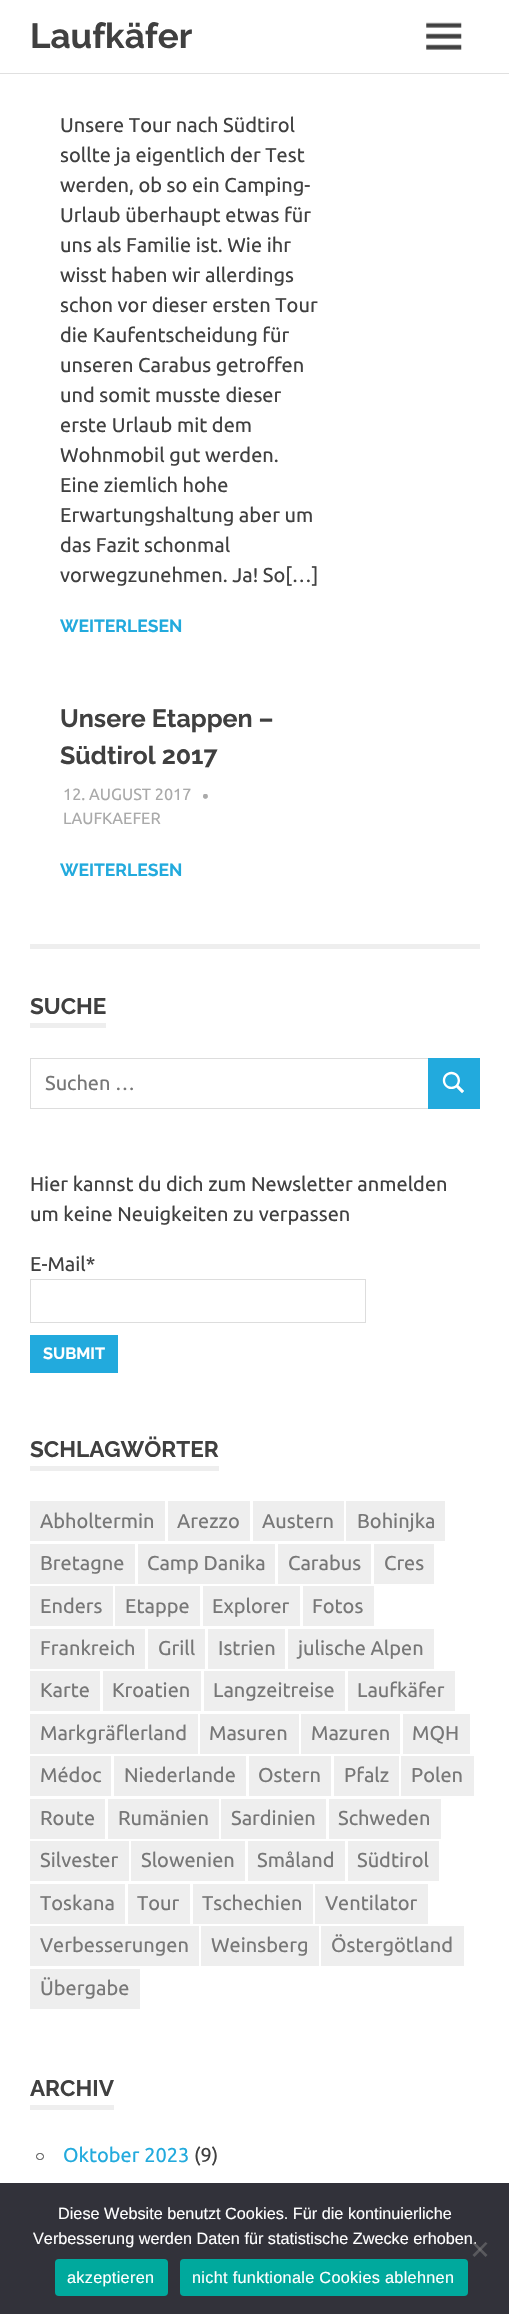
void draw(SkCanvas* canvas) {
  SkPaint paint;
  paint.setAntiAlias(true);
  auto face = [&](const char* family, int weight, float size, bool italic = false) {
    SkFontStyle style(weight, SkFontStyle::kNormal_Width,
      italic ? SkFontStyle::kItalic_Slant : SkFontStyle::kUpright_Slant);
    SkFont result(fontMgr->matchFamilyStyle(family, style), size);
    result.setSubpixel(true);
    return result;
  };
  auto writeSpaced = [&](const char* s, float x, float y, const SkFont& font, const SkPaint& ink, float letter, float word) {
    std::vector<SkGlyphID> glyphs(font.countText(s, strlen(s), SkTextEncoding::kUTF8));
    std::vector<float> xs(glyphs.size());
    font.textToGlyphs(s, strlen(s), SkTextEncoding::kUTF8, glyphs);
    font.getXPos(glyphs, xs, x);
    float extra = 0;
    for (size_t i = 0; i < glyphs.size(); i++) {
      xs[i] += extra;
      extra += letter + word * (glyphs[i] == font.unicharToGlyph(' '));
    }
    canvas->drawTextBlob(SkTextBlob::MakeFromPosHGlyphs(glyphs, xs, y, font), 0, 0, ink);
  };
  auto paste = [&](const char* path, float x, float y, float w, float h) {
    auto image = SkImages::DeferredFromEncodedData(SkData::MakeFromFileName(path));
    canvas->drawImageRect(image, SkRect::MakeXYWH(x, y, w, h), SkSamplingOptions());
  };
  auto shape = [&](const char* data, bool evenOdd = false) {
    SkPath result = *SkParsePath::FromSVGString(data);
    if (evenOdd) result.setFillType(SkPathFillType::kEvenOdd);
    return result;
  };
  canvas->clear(0xffffffff);
  paint.setColor(0xffe0e0e0);
  canvas->drawRect(SkRect::MakeXYWH(0, 73, 509, 1), paint);
  paste("img/1.png", 426, 22, 36, 28);
  paint.setColor(0xffeeeeee);
  canvas->drawRect(SkRect::MakeXYWH(30, 944, 450, 5), paint);
  canvas->drawRect(SkRect::MakeXYWH(30, 1023, 76, 5), paint);
  paint.setStroke(true);
  paint.setStrokeWidth(1);
  paint.setColor(0xffdddddd);
  canvas->drawRect(SkRect::MakeXYWH(30.5f, 1058.5f, 398, 50), paint);
  paint.setStroke(false);
  paint.setColor(0xff22aadd);
  canvas->drawRect(SkRect::MakeXYWH(428, 1058, 52, 51), paint);
  paste("img/2.png", 442, 1071, 22, 23);
  paint.setStroke(true);
  paint.setColor(0xffdddddd);
  canvas->drawRect(SkRect::MakeXYWH(30.5f, 1279.5f, 335, 43), paint);
  paint.setStroke(false);
  {
    const struct { float x, y, w, h; SkColor color; } items[] = {
      {30, 1335, 88, 38, 0xff22aadd},
      {30, 1466, 189, 5, 0xffeeeeee},
      {30, 1501, 135, 40, 0xffeeeeee},
      {168, 1501, 82, 40, 0xffeeeeee},
      {253, 1501, 91, 40, 0xffeeeeee},
      {346, 1501, 99, 40, 0xffeeeeee},
      {30, 1544, 105, 40, 0xffeeeeee},
      {138, 1544, 137, 40, 0xffeeeeee},
      {278, 1544, 93, 40, 0xffeeeeee},
      {374, 1544, 60, 40, 0xffeeeeee},
      {30, 1586, 83, 40, 0xffeeeeee},
      {115, 1586, 85, 40, 0xffeeeeee},
      {203, 1586, 97, 40, 0xffeeeeee},
      {303, 1586, 71, 40, 0xffeeeeee},
      {30, 1629, 115, 40, 0xffeeeeee},
      {148, 1629, 57, 40, 0xffeeeeee},
      {208, 1629, 77, 40, 0xffeeeeee},
      {288, 1629, 146, 40, 0xffeeeeee},
      {30, 1671, 70, 40, 0xffeeeeee},
      {103, 1671, 98, 40, 0xffeeeeee},
      {204, 1671, 141, 40, 0xffeeeeee},
      {348, 1671, 107, 40, 0xffeeeeee},
      {30, 1714, 168, 40, 0xffeeeeee},
      {200, 1714, 99, 40, 0xffeeeeee},
      {301, 1714, 99, 40, 0xffeeeeee},
      {403, 1714, 67, 40, 0xffeeeeee},
      {30, 1756, 81, 40, 0xffeeeeee},
      {114, 1756, 132, 40, 0xffeeeeee},
      {249, 1756, 82, 40, 0xffeeeeee},
      {334, 1756, 65, 40, 0xffeeeeee},
      {401, 1756, 73, 40, 0xffeeeeee},
      {30, 1799, 75, 40, 0xffeeeeee},
      {108, 1799, 111, 40, 0xffeeeeee},
      {221, 1799, 105, 40, 0xffeeeeee},
      {329, 1799, 112, 40, 0xffeeeeee},
      {30, 1841, 99, 40, 0xffeeeeee},
      {131, 1841, 114, 40, 0xffeeeeee},
      {248, 1841, 97, 40, 0xffeeeeee},
      {348, 1841, 91, 40, 0xffeeeeee},
      {30, 1884, 95, 40, 0xffeeeeee},
      {128, 1884, 62, 40, 0xffeeeeee},
      {193, 1884, 120, 40, 0xffeeeeee},
      {315, 1884, 113, 40, 0xffeeeeee},
      {30, 1926, 169, 40, 0xffeeeeee},
      {201, 1926, 118, 40, 0xffeeeeee},
      {321, 1926, 143, 40, 0xffeeeeee},
      {30, 1969, 110, 40, 0xffeeeeee},
      {30, 2105, 84, 5, 0xffeeeeee},
    };
    for (auto [x, y, w, h, color] : items) {
      paint.setColor(color);
      canvas->drawRect(SkRect::MakeXYWH(x, y, w, h), paint);
    }
  }
  paint.setStroke(true);
  paint.setColor(0xff404040);
  canvas->drawRoundRect(SkRect::MakeXYWH(36.5f, 2153.5f, 7, 6), 3, 3, paint);
  paint.setStroke(false);
  paint.setColor(0xff32323a);
  canvas->drawRect(SkRect::MakeXYWH(0, 2183, 509, 131), paint);
  paint.setColor(0xff00a99d);
  canvas->drawRoundRect(SkRect::MakeXYWH(55, 2259, 113, 37), 4, 4, paint);
  canvas->drawRoundRect(SkRect::MakeXYWH(180, 2259, 288, 37), 4, 4, paint);
  auto f0 = face("Raleway", 100, 35);
  paint.setColor(0xff404040);
  canvas->drawString("Laufkäfer", 30, 48, f0, paint);
  auto f1 = face("Ubuntu", 400, 20);
  {
    const struct { const char* s; float x, y; } items[] = {
      {"Unsere Tour nach Südtirol", 60, 132},
      {"sollte ja eigentlich der Test", 60, 162},
      {"werden, ob so ein Camping-", 60, 192},
      {"Urlaub überhaupt etwas für", 60, 222},
      {"uns als Familie ist. Wie ihr", 60, 252},
      {"wisst haben wir allerdings", 60, 282},
      {"schon vor dieser ersten Tour", 60, 312},
      {"die Kaufentscheidung für", 60, 342},
      {"unseren Carabus getroffen", 60, 372},
      {"und somit musste dieser", 60, 402},
      {"erste Urlaub mit dem", 60, 432},
      {"Wohnmobil gut werden.", 60, 462},
      {"Eine ziemlich hohe", 60, 492},
      {"Erwartungshaltung aber um", 60, 522},
      {"das Fazit schonmal", 60, 552},
      {"vorwegzunehmen. Ja! So[…]", 60, 582},
    };
    for (auto [s, x, y] : items) {
      canvas->drawString(s, x, y, f1, paint);
    }
  }
  auto f2 = face("Raleway", 100, 17.5f);
  paint.setColor(0xff22aadd);
  canvas->drawString("WEITERLESEN", 60, 632, f2, paint);
  auto f3 = face("Raleway", 100, 25);
  paint.setColor(0xff404040);
  canvas->drawString("Unsere Etappen –", 60, 727, f3, paint);
  canvas->drawString("Südtirol 2017", 60, 764, f3, paint);
  auto f4 = face("Ubuntu", 400, 16.25f);
  paint.setColor(0xffaaaaaa);
  canvas->drawString("12. AUGUST 2017", 63, 800, f4, paint);
  auto f5 = face("Ubuntu", 400, 19);
  canvas->drawString("•", 202, 803, f5, paint);
  canvas->drawString("LAUFKAEFER", 63, 824, f4, paint);
  paint.setColor(0xff22aadd);
  canvas->drawString("WEITERLESEN", 60, 876, f2, paint);
  auto f6 = face("Raleway", 100, 22.5f);
  paint.setColor(0xff404040);
  canvas->drawString("SUCHE", 30, 1014, f6, paint);
  paint.setColor(0xff777777);
  canvas->drawString("Suchen …", 45, 1090, f1, paint);
  paint.setColor(0xff404040);
  {
    const struct { const char* s; float x, y; } items[] = {
      {"Hier kannst du dich zum Newsletter anmelden", 30, 1191},
      {"um keine Neuigkeiten zu verpassen", 30, 1221},
      {"E-Mail*", 30, 1271},
    };
    for (auto [s, x, y] : items) {
      canvas->drawString(s, x, y, f1, paint);
    }
  }
  auto f7 = face("Raleway", 100, 16.25f);
  paint.setColor(0xffffffff);
  canvas->drawString("SUBMIT", 43, 1359, f7, paint);
  paint.setColor(0xff404040);
  canvas->drawString("SCHLAGWÖRTER", 30, 1457, f6, paint);
  paint.setColor(0xff777777);
  {
    const struct { const char* s; float x, y; } items[] = {
      {"Abholtermin", 40, 1528},
      {"Arezzo", 177, 1528},
      {"Austern", 262, 1528},
      {"Bohinjka", 357, 1528},
      {"Bretagne", 40, 1570},
      {"Camp Danika", 147, 1570},
      {"Carabus", 288, 1570},
      {"Cres", 384, 1570},
      {"Enders", 40, 1613},
      {"Etappe", 125, 1613},
      {"Explorer", 212, 1613},
      {"Fotos", 312, 1613},
      {"Frankreich", 40, 1655},
      {"Grill", 158, 1655},
      {"Istrien", 218, 1655},
      {"julische Alpen", 298, 1655},
      {"Karte", 40, 1697},
      {"Kroatien", 112, 1697},
      {"Langzeitreise", 213, 1697},
      {"Laufkäfer", 357, 1697},
      {"Markgräflerland", 40, 1740},
      {"Masuren", 209, 1740},
      {"Mazuren", 311, 1740},
      {"MQH", 412, 1740},
      {"Médoc", 40, 1782},
      {"Niederlande", 124, 1782},
      {"Ostern", 258, 1782},
      {"Pfalz", 344, 1782},
      {"Polen", 411, 1782},
      {"Route", 40, 1825},
      {"Rumänien", 118, 1825},
      {"Sardinien", 231, 1825},
      {"Schweden", 338, 1825},
      {"Silvester", 40, 1867},
      {"Slowenien", 141, 1867},
      {"Småland", 257, 1867},
      {"Südtirol", 357, 1867},
      {"Toskana", 40, 1910},
      {"Tour", 137, 1910},
      {"Tschechien", 202, 1910},
      {"Ventilator", 325, 1910},
      {"Verbesserungen", 40, 1952},
      {"Weinsberg", 211, 1952},
      {"Östergötland", 331, 1952},
      {"Übergabe", 40, 1995},
    };
    for (auto [s, x, y] : items) {
      canvas->drawString(s, x, y, f1, paint);
    }
  }
  paint.setColor(0xff404040);
  canvas->drawString("ARCHIV", 30, 2096, f6, paint);
  paint.setColor(0xff22aadd);
  canvas->drawString("Oktober 2023", 63, 2162, f1, paint);
  paint.setColor(0xff404040);
  canvas->drawString("(9)", 194, 2162, f1, paint);
  auto f8 = face("Liberation Sans", 400, 16.25f);
  paint.setColor(0xffffffff);
  canvas->drawString("Diese Website benutzt Cookies. Für die kontinuierliche", 58, 2219, f8, paint);
  canvas->drawString("Verbesserung werden Daten für statistische Zwecke erhoben.", 33, 2244, f8, paint);
  paint.setColor(0xff59595d);
  canvas->drawPath(shape("M485.5 2242L487.5 2243.5L474.5 2257L472.5 2255Z"), paint);
  paint.setColor(0x80808080);
  canvas->drawPath(shape("M472.5 2243.5L474.5 2242L487.5 2255L485.5 2257Z"), paint);
  paint.setColor(0xffffffff);
  writeSpaced("akzeptieren", 67, 2283, f8, paint, 0.3f, 0);
  writeSpaced("nicht funktionale Cookies ablehnen", 192, 2283, f8, paint, 0.3f, 0);
}
